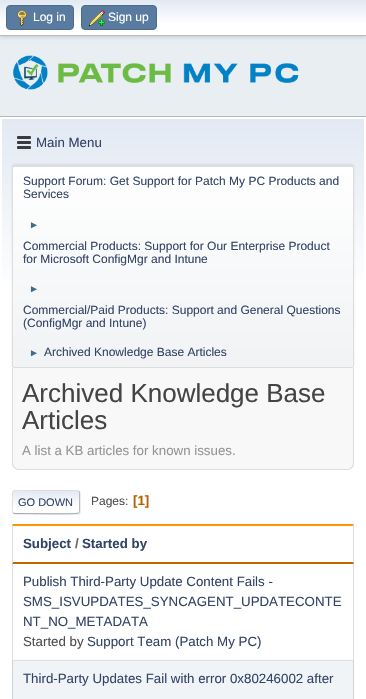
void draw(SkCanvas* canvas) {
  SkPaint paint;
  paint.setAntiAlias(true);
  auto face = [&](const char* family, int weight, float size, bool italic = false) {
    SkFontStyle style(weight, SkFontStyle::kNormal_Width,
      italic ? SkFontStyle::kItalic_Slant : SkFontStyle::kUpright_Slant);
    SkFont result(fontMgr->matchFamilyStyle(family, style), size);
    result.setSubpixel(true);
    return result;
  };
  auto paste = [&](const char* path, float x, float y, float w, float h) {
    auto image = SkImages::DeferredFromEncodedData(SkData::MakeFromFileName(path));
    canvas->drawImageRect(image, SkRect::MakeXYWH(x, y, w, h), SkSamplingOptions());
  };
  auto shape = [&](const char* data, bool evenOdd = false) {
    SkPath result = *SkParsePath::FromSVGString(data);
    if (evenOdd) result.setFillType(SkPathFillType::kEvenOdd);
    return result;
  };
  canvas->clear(0xffe9eef2);
  paint.setColor(0x29000000);
  paint.setMaskFilter(SkMaskFilter::MakeBlur(kNormal_SkBlurStyle, 2));
  canvas->drawRect(SkRect::MakeXYWH(0, 1, 366, 36), paint);
  paint.setMaskFilter(nullptr);
  {
    const SkColor colors[] = {0xffe2e9f3, 0xffffffff};
    const float stops[] = {0, 0.7f};
    const SkPoint ends[] = {{183, 0}, {183, 35}};
    paint.setShader(SkGradientShader::MakeLinear(ends, colors, stops, 2, SkTileMode::kClamp));
    paint.setAlpha(255);
  }
  canvas->drawRect(SkRect::MakeXYWH(0, 0, 366, 35), paint);
  paint.setShader(nullptr);
  paint.setColor(0xffbbbbbb);
  canvas->drawRect(SkRect::MakeXYWH(0, 35, 366, 1), paint);
  paint.setColor(0xff597b9f);
  canvas->drawRoundRect(SkRect::MakeXYWH(6.5f, 5.5f, 67, 24), 3.5f, 3.5f, paint);
  paint.setStroke(true);
  paint.setStrokeWidth(1);
  paint.setColor(0xff4a6b8c);
  canvas->drawRoundRect(SkRect::MakeXYWH(6.5f, 5.5f, 67, 24), 3.5f, 3.5f, paint);
  paste("img/1.png", 17, 10, 10, 16);
  paint.setStroke(false);
  paint.setColor(0xff597b9f);
  canvas->drawRoundRect(SkRect::MakeXYWH(81.5f, 5.5f, 75, 24), 3.5f, 3.5f, paint);
  paint.setStroke(true);
  paint.setColor(0xff4a6b8c);
  canvas->drawRoundRect(SkRect::MakeXYWH(81.5f, 5.5f, 75, 24), 3.5f, 3.5f, paint);
  paste("img/2.png", 89, 10, 16, 16);
  paste("img/3.png", 13, 55, 286, 35);
  paint.setStroke(false);
  paint.setColor(0xffffffff);
  canvas->drawRect(SkRect::MakeXYWH(0, 117, 366, 582), paint);
  paint.setColor(0xffb8b8b8);
  canvas->drawRect(SkRect::MakeXYWH(0, 116, 366, 1), paint);
  {
    const SkColor colors[] = {0xffe2e9f3, 0xffffffff};
    const float stops[] = {0, 0.7f};
    const SkPoint ends[] = {{183, 119}, {183, 370}};
    paint.setShader(SkGradientShader::MakeLinear(ends, colors, stops, 2, SkTileMode::kClamp));
    paint.setAlpha(255);
  }
  canvas->drawRect(SkRect::MakeXYWH(2, 119, 362, 161), paint);
  paste("img/4.png", 17, 136, 14, 13);
  paint.setShader(nullptr);
  paint.setColor(0x14000000);
  paint.setMaskFilter(SkMaskFilter::MakeBlur(kNormal_SkBlurStyle, 1));
  canvas->drawRoundRect(SkRect::MakeXYWH(12, 164, 342, 202), 2, 2, paint);
  paint.setMaskFilter(nullptr);
  canvas->save();
  canvas->clipPath(shape("M14 166H352C353 166 354 167 354 168V366C354 367 353 368 352 368H14C13 368 12 367 12 366V168C12 167 13 166 14 166Z"), true);
  {
    const SkColor colors[] = {0xffffffff, 0xfff1f3f5};
    const float stops[] = {0, 0.95f};
    const SkPoint ends[] = {{183, 167}, {183, 367}};
    paint.setShader(SkGradientShader::MakeLinear(ends, colors, stops, 2, SkTileMode::kClamp));
    paint.setAlpha(255);
  }
  canvas->drawRect(SkRect::MakeXYWH(12, 167, 342, 200), paint);
  canvas->restore();
  paint.setStroke(true);
  paint.setShader(nullptr);
  paint.setColor(0xffdddddd);
  canvas->drawRoundRect(SkRect::MakeXYWH(12.5f, 166.5f, 341, 201), 1.5f, 1.5f, paint);
  paint.setStroke(false);
  paint.setColor(0xfff8f8f8);
  canvas->drawPath(shape("M12 368H354V463C354 467 351 470 347 470H19C15 470 12 467 12 463Z"), paint);
  paint.setColor(0xffdddddd);
  canvas->drawPath(shape("M12 368H354V463C354 467 351 470 347 470H19C15 470 12 467 12 463ZM13 368H353V463C353 466 350 469 347 469H19C16 469 13 466 13 463Z", true), paint);
  paint.setColor(0x91dddddd);
  paint.setMaskFilter(SkMaskFilter::MakeBlur(kNormal_SkBlurStyle, 0.5f));
  canvas->drawRoundRect(SkRect::MakeXYWH(13, 491, 68, 24), 3, 3, paint);
  paint.setMaskFilter(nullptr);
  canvas->save();
  canvas->clipPath(shape("M15 490H77C78.5 490 80 491.5 80 493V511C80 512.5 78.5 514 77 514H15C13.5 514 12 512.5 12 511V493C12 491.5 13.5 490 15 490Z"), true);
  {
    const SkColor colors[] = {0xffe2e9f3, 0xffffffff};
    const float stops[] = {0, 0.7f};
    const SkPoint ends[] = {{46, 491}, {46, 513}};
    paint.setShader(SkGradientShader::MakeLinear(ends, colors, stops, 2, SkTileMode::kClamp));
    paint.setAlpha(255);
  }
  canvas->drawRect(SkRect::MakeXYWH(12, 491, 68, 22), paint);
  {
    const SkColor colors[] = {0xffe2e9f3, 0xffffffff};
    const float stops[] = {0, 0.7f};
    const SkPoint ends[] = {{46, 513}, {46, 535}};
    paint.setShader(SkGradientShader::MakeLinear(ends, colors, stops, 2, SkTileMode::kClamp));
    paint.setAlpha(255);
  }
  canvas->drawRect(SkRect::MakeXYWH(12, 513, 68, 1), paint);
  canvas->restore();
  paint.setStroke(true);
  paint.setShader(nullptr);
  paint.setColor(0xffbbbbbb);
  canvas->drawPath(shape("M79 491C79 491.5 79.5 492.5 79.5 493V511C79.5 511.5 79 512.5 79 513"), paint);
  paint.setColor(0xffaaaaaa);
  canvas->drawPath(shape("M79 513H78.5C76.5 514.5 31.5 513.5 25.5 513.5H15L13 513"), paint);
  canvas->save();
  canvas->clipRect(SkRect::MakeXYWH(12, 485, 342, 34));
  paint.setColor(0xffdddddd);
  canvas->drawPath(shape("M13 513C11.5 511 12.5 507 12.5 505C12.5 488.5 9 490.5 25.5 490.5H77L79 491"), paint);
  canvas->restore();
  paint.setStroke(false);
  paint.setColor(0xffff9400);
  canvas->drawPath(shape("M12 524H354L353 526H13Z"), paint);
  paint.setColor(0xffdddddd);
  canvas->drawPath(shape("M354 524V564L353 562V526Z"), paint);
  paint.setColor(0xffbf6900);
  canvas->drawPath(shape("M354 564H12L13 562H353Z"), paint);
  paint.setColor(0xffdddddd);
  canvas->drawPath(shape("M12 564V524L13 526V562Z"), paint);
  paint.setColor(0xffdcdcdc);
  canvas->drawPath(shape("M354 564V661L353 660V564Z"), paint);
  paint.setColor(0x21000000);
  canvas->drawPath(shape("M354 661H12L13 660H353Z"), paint);
  canvas->drawPath(shape("M12 661V564H13V660Z"), paint);
  paint.setColor(0xfff0f4f7);
  canvas->drawRect(SkRect::MakeXYWH(13, 661, 340, 38), paint);
  paint.setColor(0xffd1d4d7);
  canvas->drawPath(shape("M354 661V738L353 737V661Z"), paint);
  canvas->drawPath(shape("M12 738V661H13V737Z"), paint);
  auto f0 = face("Liberation Sans", 400, 12);
  paint.setColor(0xffffffff);
  canvas->drawString("Log in", 33, 21, f0, paint);
  canvas->drawString("Sign up", 108, 21, f0, paint);
  auto f1 = face("Liberation Sans", 400, 13.3f);
  paint.setColor(0xff334466);
  canvas->drawString("Main Menu", 36, 147, f1, paint);
  canvas->drawString("Support Forum: Get Support for Patch My PC Products and", 23, 185, f0, paint);
  canvas->drawString("Services", 23, 198, f0, paint);
  auto f2 = face("Liberation Sans", 400, 10);
  paint.setColor(0xff3f6b8c);
  canvas->drawString("►", 29, 228, f2, paint);
  paint.setColor(0xff334466);
  canvas->drawString("Commercial Products: Support for Our Enterprise Product", 23, 250, f0, paint);
  canvas->drawString("for Microsoft ConfigMgr and Intune", 23, 263, f0, paint);
  paint.setColor(0xff3f6b8c);
  canvas->drawString("►", 29, 292, f2, paint);
  paint.setColor(0xff334466);
  canvas->drawString("Commercial/Paid Products: Support and General Questions", 23, 314, f0, paint);
  canvas->drawString("(ConfigMgr and Intune)", 23, 327, f0, paint);
  paint.setColor(0xff3f6b8c);
  canvas->drawString("►", 29, 356, f2, paint);
  paint.setColor(0xff334466);
  canvas->drawString("Archived Knowledge Base Articles", 44, 356, f0, paint);
  auto f3 = face("Liberation Sans", 400, 26);
  paint.setColor(0xff444444);
  canvas->drawString("Archived Knowledge Base", 22, 402, f3, paint);
  canvas->drawString("Articles", 22, 429, f3, paint);
  paint.setColor(0xff959595);
  canvas->drawString("A list a KB articles for known issues.", 22, 455, f1, paint);
  auto f4 = face("Liberation Sans", 400, 11);
  paint.setColor(0xff334466);
  canvas->drawString("GO DOWN", 18, 506, f4, paint);
  paint.setColor(0xff4d4d4d);
  canvas->drawString("Pages:", 91, 505, f0, paint);
  auto f5 = face("Liberation Sans", 700, 13.3f);
  paint.setColor(0xffb46100);
  canvas->drawString("[1]", 133, 505, f5, paint);
  paint.setColor(0xff334466);
  canvas->drawString("Subject", 23, 548, f5, paint);
  paint.setColor(0xff666666);
  canvas->drawString("/", 75, 548, f5, paint);
  paint.setColor(0xff334466);
  canvas->drawString("Started by", 82, 548, f5, paint);
  {
    const struct { const char* s; float x, y; } items[] = {
      {"Publish Third-Party Update Content Fails -", 23, 586},
      {"SMS_ISVUPDATES_SYNCAGENT_UPDATECONTE", 23, 606},
      {"NT_NO_METADATA", 23, 626},
    };
    for (auto [s, x, y] : items) {
      canvas->drawString(s, x, y, f1, paint);
    }
  }
  paint.setColor(0xff4d4d4d);
  canvas->drawString("Started by", 23, 646, f1, paint);
  paint.setColor(0xff334466);
  canvas->drawString("Support Team (Patch My PC)", 87, 646, f1, paint);
  canvas->drawString("Third-Party Updates Fail with error 0x80246002 after", 23, 683, f1, paint);
}
